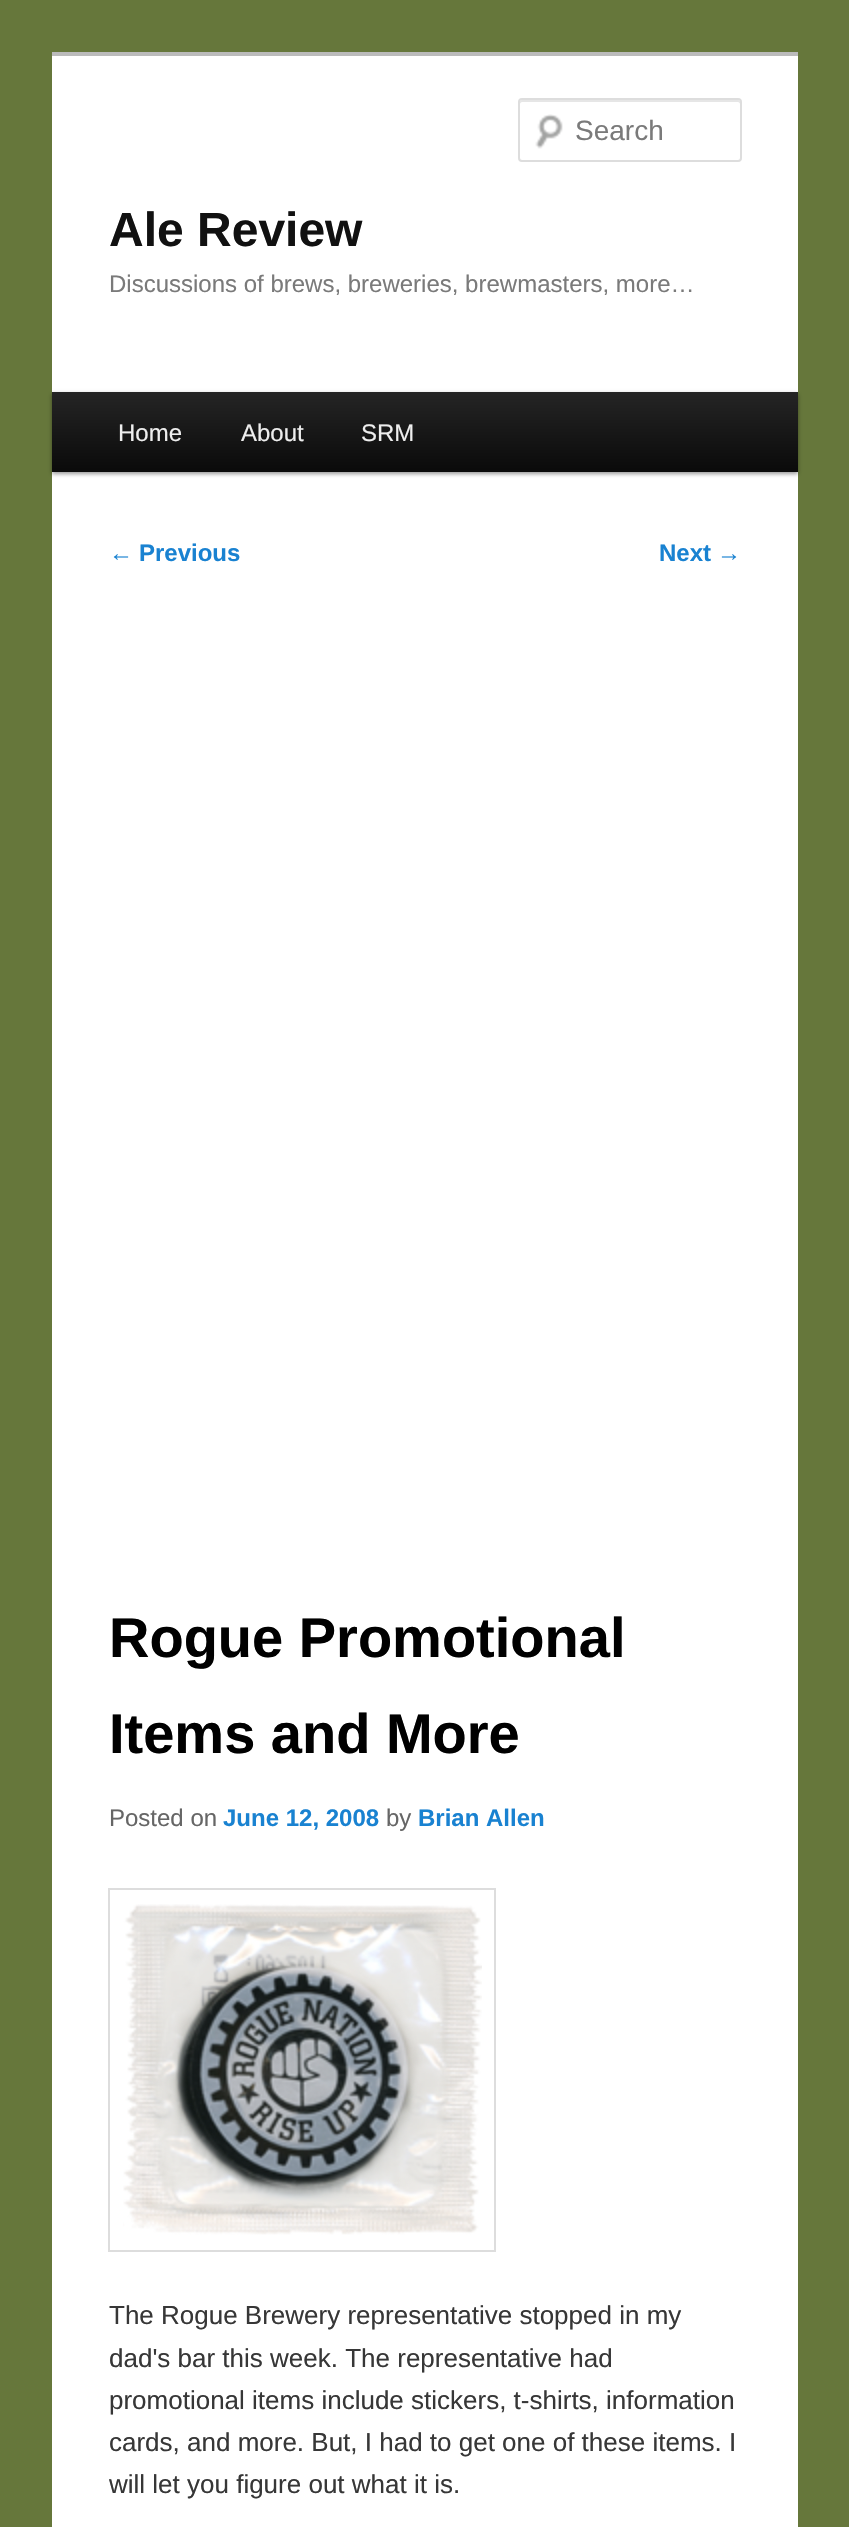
void draw(SkCanvas* canvas) {
  SkPaint paint;
  paint.setAntiAlias(true);
  auto face = [&](const char* family, int weight, float size, bool italic = false) {
    SkFontStyle style(weight, SkFontStyle::kNormal_Width,
      italic ? SkFontStyle::kItalic_Slant : SkFontStyle::kUpright_Slant);
    SkFont result(fontMgr->matchFamilyStyle(family, style), size);
    result.setSubpixel(true);
    return result;
  };
  auto paste = [&](const char* path, float x, float y, float w, float h) {
    auto image = SkImages::DeferredFromEncodedData(SkData::MakeFromFileName(path));
    canvas->drawImageRect(image, SkRect::MakeXYWH(x, y, w, h), SkSamplingOptions());
  };
  auto shape = [&](const char* data, bool evenOdd = false) {
    SkPath result = *SkParsePath::FromSVGString(data);
    if (evenOdd) result.setFillType(SkPathFillType::kEvenOdd);
    return result;
  };
  canvas->clear(0xff66773b);
  paint.setColor(0xffffffff);
  canvas->drawRect(SkRect::MakeXYWH(52, 56, 746, 2471), paint);
  paint.setColor(0xffbbbbbb);
  canvas->drawRect(SkRect::MakeXYWH(52, 52, 746, 4), paint);
  paste("img/1.png", 535, 114, 28, 35);
  paint.setColor(0xffe6e6e6);
  canvas->drawPath(shape("M522 102H738C739 102 740 103 740 104V102C740 101 739 100 738 100H522C521 100 520 101 520 102V104C520 103 521 102 522 102Z"), paint);
  paint.setStroke(true);
  paint.setStrokeWidth(2);
  paint.setColor(0xffdddddd);
  canvas->drawRoundRect(SkRect::MakeXYWH(519, 99, 222, 62), 3, 3, paint);
  paint.setStroke(false);
  paint.setColor(0x66000000);
  paint.setMaskFilter(SkMaskFilter::MakeBlur(kNormal_SkBlurStyle, 2));
  canvas->drawRect(SkRect::MakeXYWH(52, 394, 746, 80), paint);
  paint.setMaskFilter(nullptr);
  {
    const SkColor colors[] = {0xff252525, 0xff0a0a0a};
    const float stops[] = {0, 1};
    const SkPoint ends[] = {{425, 392}, {425, 472}};
    paint.setShader(SkGradientShader::MakeLinear(ends, colors, stops, 2, SkTileMode::kClamp));
    paint.setAlpha(255);
  }
  canvas->drawRect(SkRect::MakeXYWH(52, 392, 746, 80), paint);
  paint.setStroke(true);
  paint.setShader(nullptr);
  paint.setColor(0xffdddddd);
  canvas->drawRect(SkRect::MakeXYWH(109, 1889, 386, 362), paint);
  paste("img/2.png", 123, 1904, 359, 331);
  auto f0 = face("Liberation Sans", 400, 28);
  paint.setStroke(false);
  paint.setColor(0xff7a7a7a);
  canvas->drawString("Search", 575, 140, f0, paint);
  auto f1 = face("Liberation Sans", 700, 48);
  paint.setColor(0xff111111);
  canvas->drawString("Ale Review", 109, 246, f1, paint);
  auto f2 = face("Liberation Sans", 400, 24);
  paint.setColor(0xff7a7a7a);
  canvas->drawString("Discussions of brews, breweries, brewmasters, more…", 109, 292, f2, paint);
  paint.setColor(0xffeeeeee);
  {
    const struct { const char* s; float x, y; } items[] = {
      {"Home", 118, 441},
      {"About", 241, 441},
      {"SRM", 361, 441},
    };
    for (auto [s, x, y] : items) {
      canvas->drawString(s, x, y, f2, paint);
    }
  }
  paint.setColor(0xff1982d1);
  canvas->drawString("←", 109, 561, f2, paint);
  auto f3 = face("Liberation Sans", 700, 24);
  canvas->drawString("Previous", 139, 561, f3, paint);
  canvas->drawString("Next", 659, 561, f3, paint);
  canvas->drawString("→", 717, 561, f2, paint);
  auto f4 = face("Liberation Sans", 700, 56);
  paint.setColor(0xff000000);
  canvas->drawString("Rogue Promotional", 109, 1657, f4, paint);
  canvas->drawString("Items and More", 109, 1753, f4, paint);
  paint.setColor(0xff666666);
  canvas->drawString("Posted on", 109, 1826, f2, paint);
  paint.setColor(0xff1982d1);
  canvas->drawString("June 12, 2008", 223, 1826, f3, paint);
  paint.setColor(0xff666666);
  canvas->drawString("by", 386, 1826, f2, paint);
  paint.setColor(0xff1982d1);
  canvas->drawString("Brian Allen", 418, 1826, f3, paint);
  auto f5 = face("Liberation Sans", 400, 26);
  paint.setColor(0xff373737);
  {
    const struct { const char* s; float x, y; } items[] = {
      {"The Rogue Brewery representative stopped in my", 109, 2324},
      {"dad's bar this week. The representative had", 109, 2367},
      {"promotional items include stickers, t-shirts, information", 109, 2409},
      {"cards, and more. But, I had to get one of these items. I", 109, 2451},
      {"will let you figure out what it is.", 109, 2493},
    };
    for (auto [s, x, y] : items) {
      canvas->drawString(s, x, y, f5, paint);
    }
  }
}
